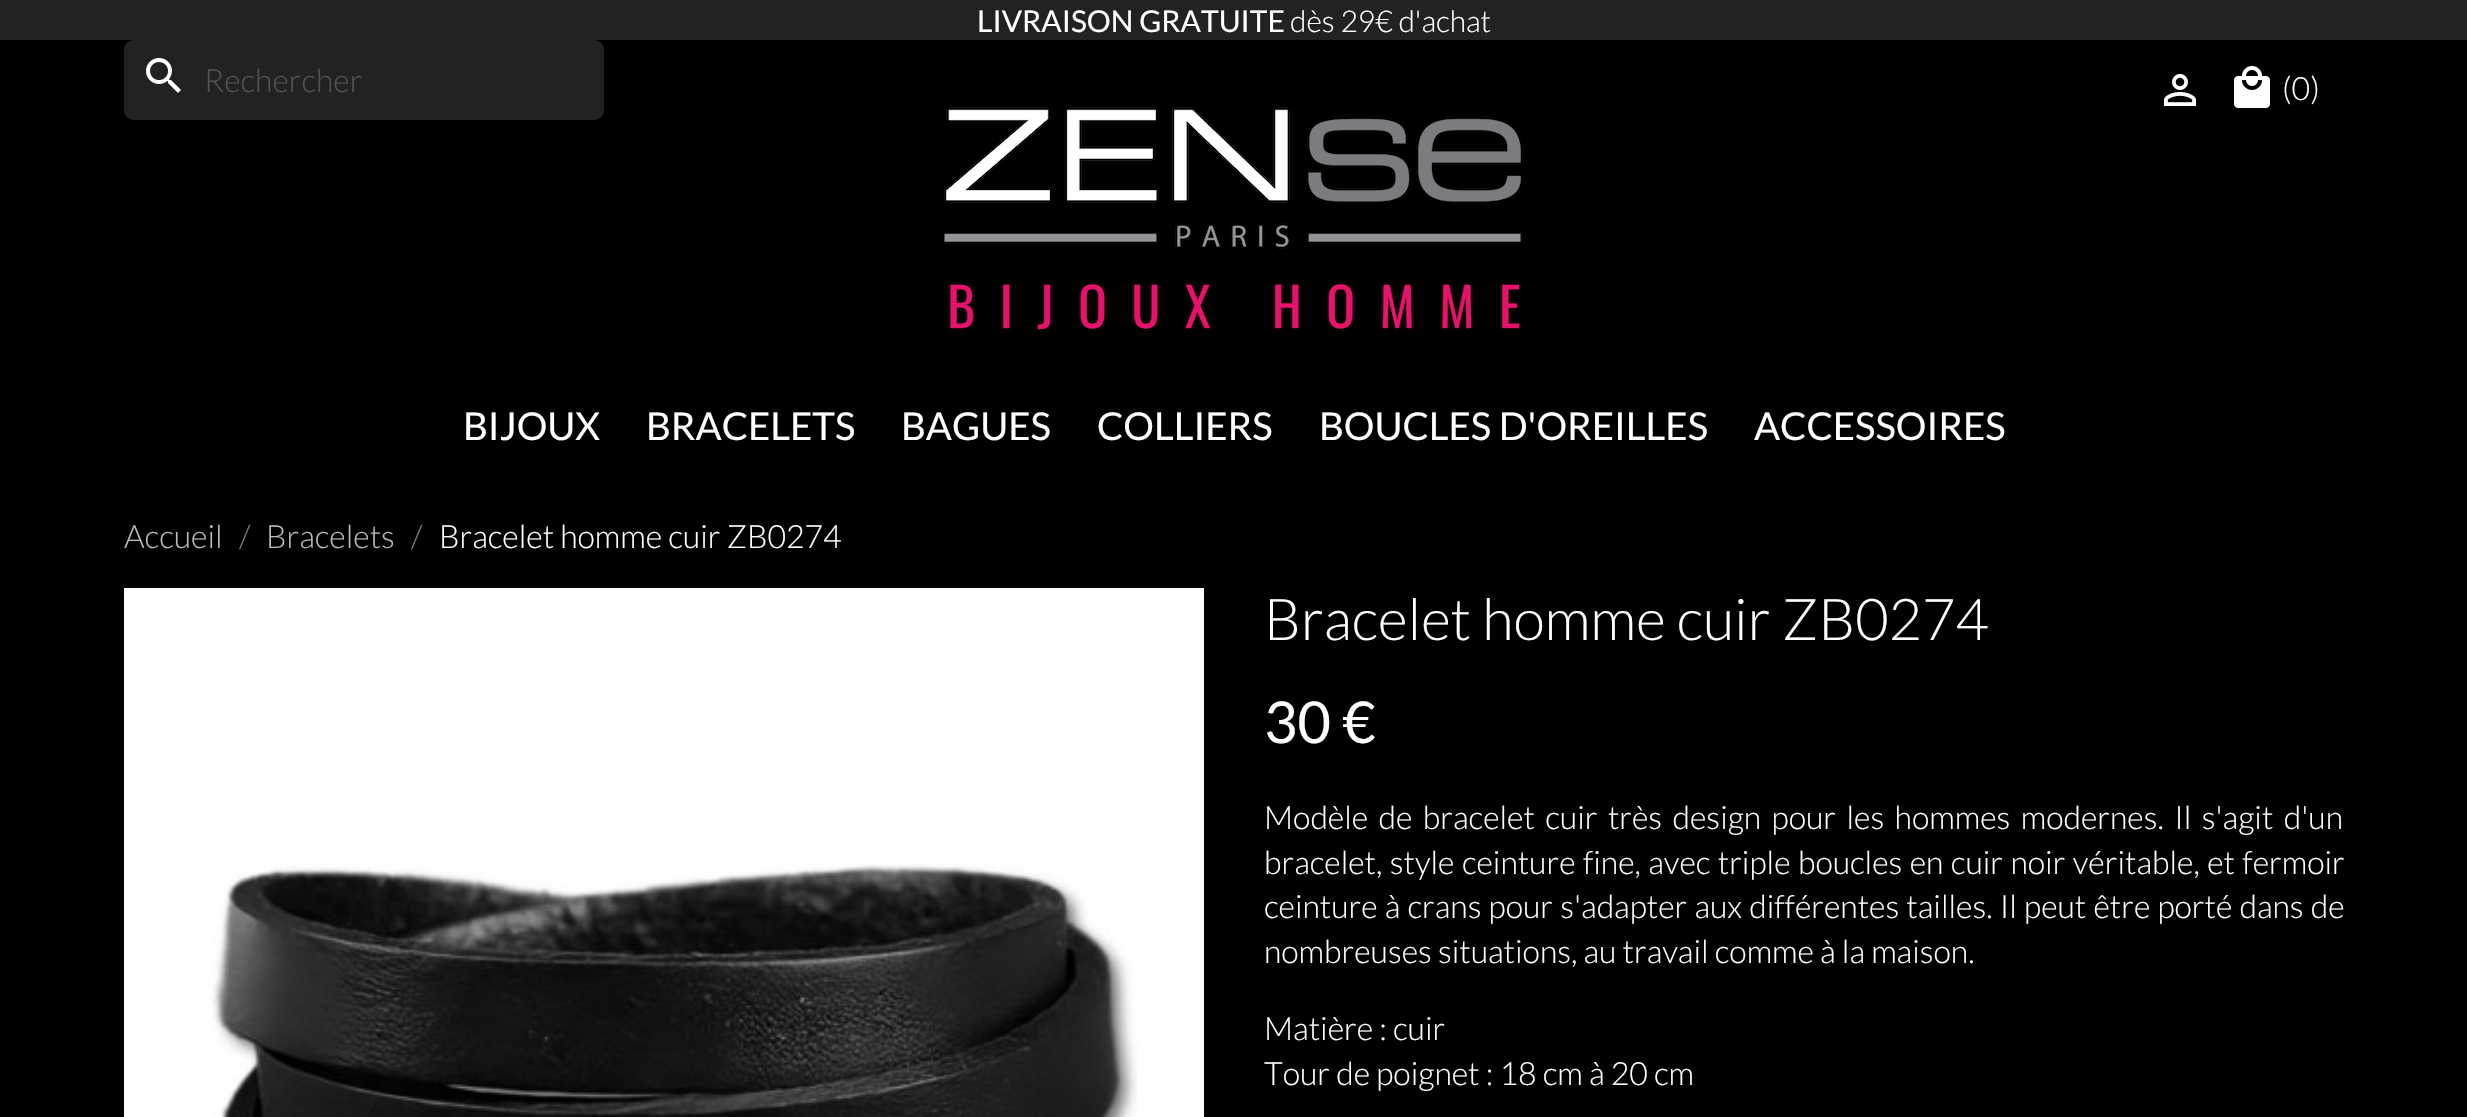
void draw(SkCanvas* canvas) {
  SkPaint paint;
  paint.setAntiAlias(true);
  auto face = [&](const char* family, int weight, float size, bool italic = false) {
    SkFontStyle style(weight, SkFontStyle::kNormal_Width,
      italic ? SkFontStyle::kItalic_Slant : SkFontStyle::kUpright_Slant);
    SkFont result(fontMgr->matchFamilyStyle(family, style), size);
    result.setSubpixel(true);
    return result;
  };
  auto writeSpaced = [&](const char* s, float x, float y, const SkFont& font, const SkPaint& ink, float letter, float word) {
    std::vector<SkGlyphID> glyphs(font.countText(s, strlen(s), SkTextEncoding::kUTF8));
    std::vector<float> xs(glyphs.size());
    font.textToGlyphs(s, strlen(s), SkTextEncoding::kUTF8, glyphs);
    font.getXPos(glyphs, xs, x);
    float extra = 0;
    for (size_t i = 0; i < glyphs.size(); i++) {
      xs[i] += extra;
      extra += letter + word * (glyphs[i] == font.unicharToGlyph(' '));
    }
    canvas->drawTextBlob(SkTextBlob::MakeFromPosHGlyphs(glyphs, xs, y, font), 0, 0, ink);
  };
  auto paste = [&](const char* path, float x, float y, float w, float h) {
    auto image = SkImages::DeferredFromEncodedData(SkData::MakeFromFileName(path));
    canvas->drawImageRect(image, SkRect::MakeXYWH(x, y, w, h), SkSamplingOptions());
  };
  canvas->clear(0xff000000);
  paint.setColor(0xff222222);
  canvas->drawRect(SkRect::MakeXYWH(0, 0, 2467, 40), paint);
  canvas->drawRoundRect(SkRect::MakeXYWH(124, 40, 480, 80), 10, 10, paint);
  paste("img/1.png", 146, 58, 35, 35);
  paste("img/2.png", 2163, 74, 34, 32);
  paste("img/3.png", 2234, 66, 36, 42);
  paste("img/4.png", 942, 107, 581, 225);
  paint.setStroke(true);
  paint.setStrokeWidth(6);
  paint.setColor(0xffffffff);
  canvas->drawRect(SkRect::MakeXYWH(127, 591, 1074, 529), paint);
  paint.setStroke(false);
  canvas->drawRect(SkRect::MakeXYWH(130, 594, 1068, 523), paint);
  paste("img/5.png", 211, 863, 927, 254);
  auto f0 = face("Lato", 400, 30);
  canvas->drawString("LIVRAISON GRATUITE", 977, 32, f0, paint);
  auto f1 = face("Lato", 300, 30);
  canvas->drawString("dès 29€ d'achat", 1290, 32, f1, paint);
  auto f2 = face("Lato", 300, 32);
  paint.setColor(0xff525252);
  canvas->drawString("Rechercher", 204, 92, f2, paint);
  paint.setColor(0xffffffff);
  canvas->drawString("(0)", 2282, 100, f2, paint);
  auto f3 = face("Lato", 400, 38.4f);
  {
    const struct { const char* s; float x, y; } items[] = {
      {"BIJOUX", 463, 440},
      {"BRACELETS", 646, 440},
      {"BAGUES", 901, 440},
      {"COLLIERS", 1097, 440},
      {"BOUCLES D'OREILLES", 1319, 440},
      {"ACCESSOIRES", 1754, 440},
    };
    for (auto [s, x, y] : items) {
      canvas->drawString(s, x, y, f3, paint);
    }
  }
  paint.setColor(0xffbbbbbb);
  canvas->drawString("Accueil", 124, 548, f2, paint);
  paint.setColor(0xff7a7a7a);
  canvas->drawString("/", 239, 548, f2, paint);
  paint.setColor(0xffbbbbbb);
  canvas->drawString("Bracelets", 266, 548, f2, paint);
  paint.setColor(0xff7a7a7a);
  canvas->drawString("/", 411, 548, f2, paint);
  paint.setColor(0xffffffff);
  canvas->drawString("Bracelet homme cuir ZB0274", 439, 548, f2, paint);
  auto f4 = face("Lato", 300, 57.6f);
  canvas->drawString("Bracelet homme cuir ZB0274", 1264, 640, f4, paint);
  auto f5 = face("Lato", 400, 57.6f);
  canvas->drawString("30 €", 1264, 743, f5, paint);
  writeSpaced("Modèle de bracelet cuir très design pour les hommes modernes. Il s'agit d'un", 1264, 829, f2, paint, 0, 4.25f);
  writeSpaced("bracelet, style ceinture fine, avec triple boucles en cuir noir véritable, et fermoir", 1264, 874, f2, paint, 0, 1.25f);
  writeSpaced("ceinture à crans pour s'adapter aux différentes tailles. Il peut être porté dans de", 1264, 918, f2, paint, 0, 1);
  {
    const struct { const char* s; float x, y; } items[] = {
      {"nombreuses situations, au travail comme à la maison.", 1264, 963},
      {"Matière : cuir", 1264, 1040},
      {"Tour de poignet : 18 cm à 20 cm", 1264, 1085},
    };
    for (auto [s, x, y] : items) {
      canvas->drawString(s, x, y, f2, paint);
    }
  }
}
